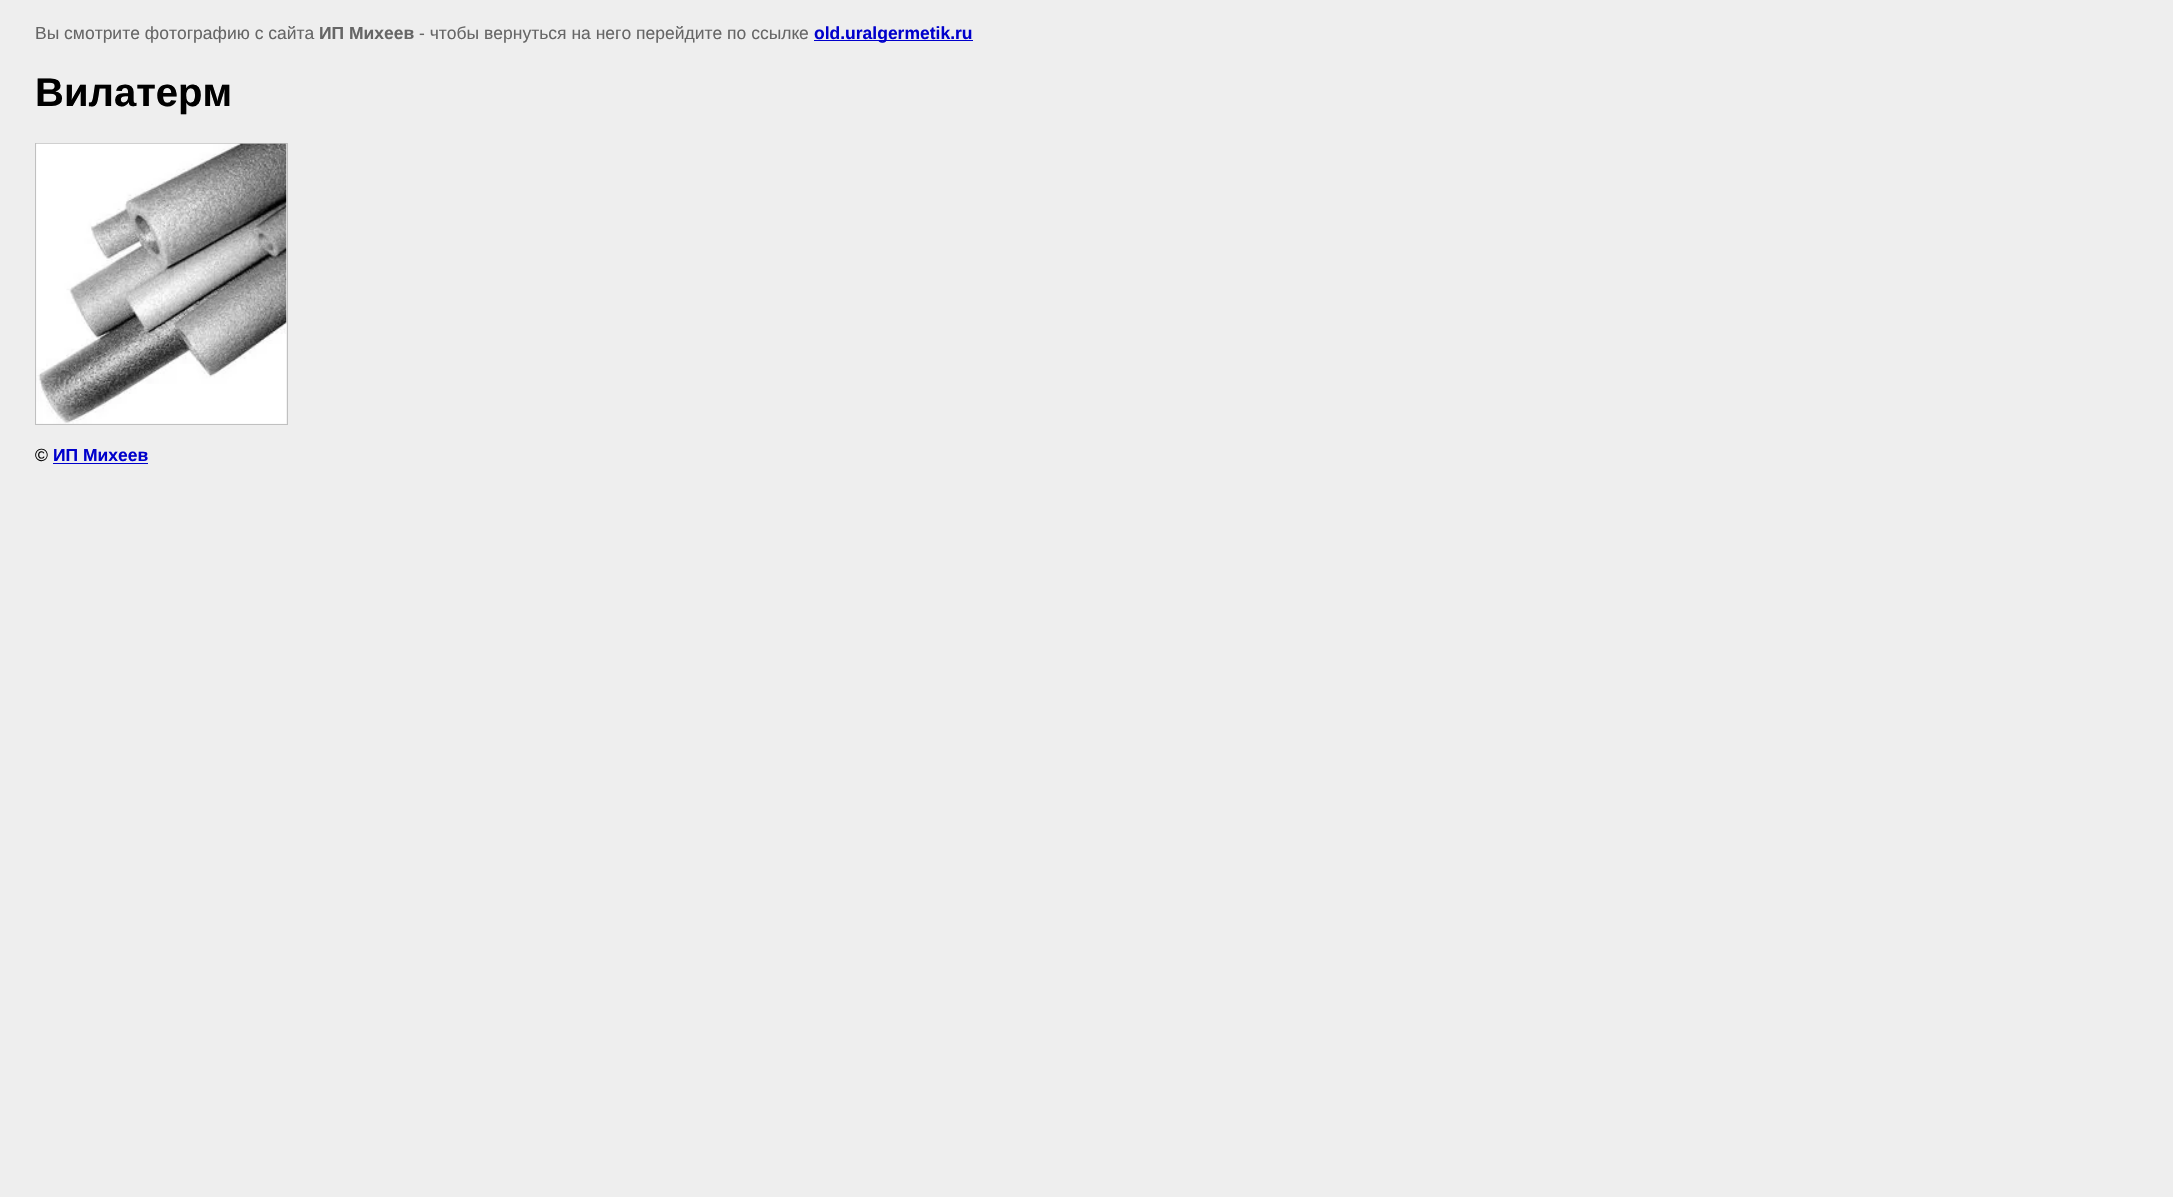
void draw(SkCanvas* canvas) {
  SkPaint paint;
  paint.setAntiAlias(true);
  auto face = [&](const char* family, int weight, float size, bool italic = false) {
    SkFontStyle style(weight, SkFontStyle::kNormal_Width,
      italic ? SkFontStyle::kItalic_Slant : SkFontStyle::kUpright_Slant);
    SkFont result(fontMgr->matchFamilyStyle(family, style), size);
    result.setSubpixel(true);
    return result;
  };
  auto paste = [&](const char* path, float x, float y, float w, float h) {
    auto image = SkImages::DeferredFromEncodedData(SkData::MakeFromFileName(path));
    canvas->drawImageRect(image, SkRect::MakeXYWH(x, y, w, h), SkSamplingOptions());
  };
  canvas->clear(0xffeeeeee);
  paint.setColor(0xff0000cc);
  canvas->drawRect(SkRect::MakeXYWH(814, 40, 159, 1), paint);
  paint.setStroke(true);
  paint.setStrokeWidth(1);
  paint.setColor(0xffc0c0c0);
  canvas->drawRect(SkRect::MakeXYWH(35.5f, 143.5f, 252, 281), paint);
  paste("img/1.png", 36, 143, 251, 281);
  paint.setStroke(false);
  paint.setColor(0xff0000cc);
  canvas->drawRect(SkRect::MakeXYWH(53, 463, 95, 1), paint);
  auto f0 = face("Liberation Sans", 400, 17.5f);
  paint.setColor(0xff666666);
  canvas->drawString("Вы смотрите фотографию с сайта", 35, 39, f0, paint);
  auto f1 = face("Liberation Sans", 700, 17.5f);
  canvas->drawString("ИП Михеев", 319, 39, f1, paint);
  canvas->drawString("- чтобы вернуться на него перейдите по ссылке", 419, 39, f0, paint);
  paint.setColor(0xff0000cc);
  canvas->drawString("old.uralgermetik.ru", 814, 39, f1, paint);
  auto f2 = face("Liberation Sans", 700, 40);
  paint.setColor(0xff000000);
  canvas->drawString("Вилатерм", 35, 106, f2, paint);
  canvas->drawString("©", 35, 461, f0, paint);
  paint.setColor(0xff0000cc);
  canvas->drawString("ИП Михеев", 53, 461, f1, paint);
}
